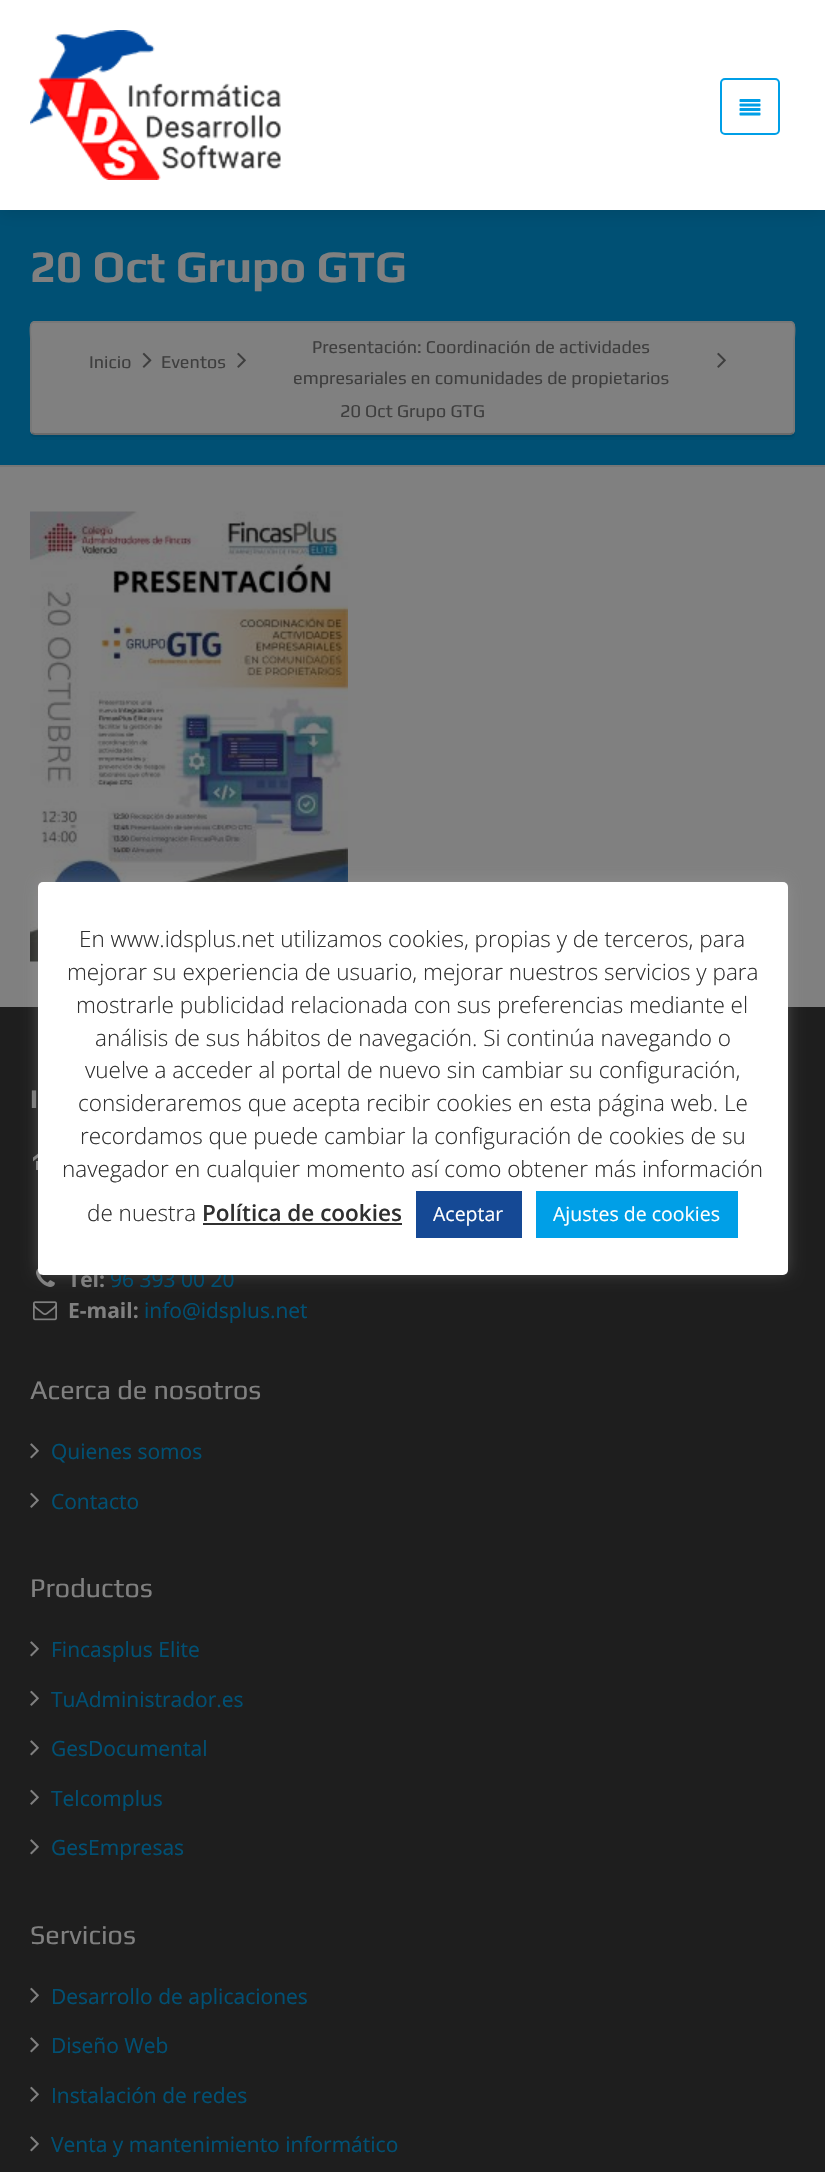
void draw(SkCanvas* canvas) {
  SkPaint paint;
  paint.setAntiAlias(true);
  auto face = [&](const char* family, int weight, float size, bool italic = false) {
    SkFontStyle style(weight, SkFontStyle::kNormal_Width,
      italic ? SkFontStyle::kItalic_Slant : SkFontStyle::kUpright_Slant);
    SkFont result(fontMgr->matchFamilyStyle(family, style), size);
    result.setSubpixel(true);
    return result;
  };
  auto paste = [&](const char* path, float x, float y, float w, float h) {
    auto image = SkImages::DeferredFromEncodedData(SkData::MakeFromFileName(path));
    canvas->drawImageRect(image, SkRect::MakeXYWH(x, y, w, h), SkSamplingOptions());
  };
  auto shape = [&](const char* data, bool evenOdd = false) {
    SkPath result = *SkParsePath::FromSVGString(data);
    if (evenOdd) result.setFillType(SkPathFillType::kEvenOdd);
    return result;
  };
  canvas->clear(0xff808080);
  paint.setColor(0xff005074);
  canvas->drawRect(SkRect::MakeXYWH(0, 210, 825, 255), paint);
  paint.setColor(0x1a000000);
  paint.setMaskFilter(SkMaskFilter::MakeBlur(kNormal_SkBlurStyle, 7.5f));
  canvas->drawRect(SkRect::MakeXYWH(0, 3, 825, 210), paint);
  paint.setMaskFilter(nullptr);
  paint.setColor(0xffffffff);
  canvas->drawRect(SkRect::MakeXYWH(0, 0, 825, 210), paint);
  paste("img/1.png", 30, 30, 251, 150);
  paint.setStroke(true);
  paint.setStrokeWidth(2);
  paint.setColor(0xff009fe7);
  canvas->drawRoundRect(SkRect::MakeXYWH(721, 79, 58, 55), 4, 4, paint);
  paste("img/2.png", 739, 99, 22, 17);
  paint.setStroke(false);
  paint.setColor(0xff767676);
  canvas->drawRect(SkRect::MakeXYWH(0, 465, 825, 2), paint);
  paint.setColor(0xff004a6c);
  canvas->drawPath(shape("M30 430V432C30 435 32 437 35 437H790C793 437 795 435 795 432V430C795 433 793 435 790 435H34C32 435 30 433 30 430Z"), paint);
  paint.setColor(0x08000000);
  canvas->drawPath(shape("M30 430V435C30 438 32 440 35 440H790C793 440 795 438 795 435V430C795 433 793 435 790 435H34C32 435 30 433 30 430Z"), paint);
  paint.setColor(0xff808080);
  canvas->drawRoundRect(SkRect::MakeXYWH(30, 321, 765, 114), 5, 5, paint);
  paint.setStroke(true);
  paint.setStrokeWidth(1.5f);
  paint.setColor(0x38000000);
  canvas->drawPath(shape("M793 433L790.5 434H34.5L32 433"), paint);
  paint.setColor(0xff767676);
  canvas->drawPath(shape("M32 433L31 430.5V343C31 335.5 28 322 34.5 322H790.5C797 322 794 335.5 794 343V430.5L793 433"), paint);
  paste("img/3.png", 142, 352, 10, 16);
  paste("img/4.png", 237, 352, 9, 16);
  paste("img/4.png", 717, 352, 9, 16);
  paste("img/5.png", 30, 511, 318, 451);
  paint.setStroke(false);
  paint.setColor(0xff1e1e1e);
  canvas->drawRect(SkRect::MakeXYWH(0, 1007, 825, 1165), paint);
  paste("img/6.png", 33, 1153, 5, 17);
  paste("img/7.png", 36, 1268, 19, 19);
  paste("img/8.png", 33, 1301, 24, 20);
  paste("img/9.png", 30, 1443, 9, 16);
  paste("img/10.png", 30, 1492, 9, 16);
  paste("img/9.png", 30, 1641, 9, 16);
  paste("img/10.png", 30, 1690, 9, 16);
  paste("img/9.png", 30, 1740, 9, 16);
  paste("img/10.png", 30, 1789, 9, 16);
  paste("img/9.png", 30, 1839, 9, 16);
  paste("img/10.png", 30, 1987, 9, 16);
  paste("img/9.png", 30, 2037, 9, 16);
  paste("img/10.png", 30, 2086, 9, 16);
  paste("img/9.png", 30, 2136, 9, 16);
  paint.setColor(0x4dacabab);
  paint.setMaskFilter(SkMaskFilter::MakeBlur(kNormal_SkBlurStyle, 7.5f));
  canvas->drawRoundRect(SkRect::MakeXYWH(38, 881, 750, 393), 5, 5, paint);
  paint.setMaskFilter(nullptr);
  auto f0 = face("Play", 700, 45);
  paint.setColor(0xff808080);
  canvas->drawString("20 Oct Grupo GTG", 30, 282, f0, paint);
  auto f1 = face("Play", 400, 18);
  paint.setColor(0xff3e3e3e);
  {
    const struct { const char* s; float x, y; } items[] = {
      {"Inicio", 89, 368},
      {"Eventos", 161, 368},
      {"Presentación: Coordinación de actividades", 312, 353},
      {"empresariales en comunidades de propietarios", 293, 384},
      {"20 Oct Grupo GTG", 340, 417},
    };
    for (auto [s, x, y] : items) {
      canvas->drawString(s, x, y, f1, paint);
    }
  }
  auto f2 = face("Play", 700, 27);
  paint.setColor(0xff808080);
  canvas->drawString("I", 30, 1108, f2, paint);
  auto f3 = face("Open Sans", 700, 21);
  canvas->drawString("Tel:", 68, 1287, f3, paint);
  auto f4 = face("Open Sans", 400, 21);
  paint.setColor(0xff005074);
  canvas->drawString("96 393 00 20", 110, 1287, f4, paint);
  paint.setColor(0xff808080);
  canvas->drawString("E-mail:", 68, 1318, f3, paint);
  paint.setColor(0xff005074);
  canvas->drawString("info@idsplus.net", 144, 1318, f4, paint);
  auto f5 = face("Play", 400, 27);
  paint.setColor(0xff808080);
  canvas->drawString("Acerca de nosotros", 30, 1399, f5, paint);
  paint.setColor(0xff005074);
  canvas->drawString("Quienes somos", 51, 1459, f4, paint);
  canvas->drawString("Contacto", 51, 1509, f4, paint);
  paint.setColor(0xff808080);
  canvas->drawString("Productos", 30, 1597, f5, paint);
  paint.setColor(0xff005074);
  {
    const struct { const char* s; float x, y; } items[] = {
      {"Fincasplus Elite", 51, 1657},
      {"TuAdministrador.es", 51, 1707},
      {"GesDocumental", 51, 1756},
      {"Telcomplus", 51, 1806},
      {"GesEmpresas", 51, 1855},
    };
    for (auto [s, x, y] : items) {
      canvas->drawString(s, x, y, f4, paint);
    }
  }
  paint.setColor(0xff808080);
  canvas->drawString("Servicios", 30, 1944, f5, paint);
  paint.setColor(0xff005074);
  {
    const struct { const char* s; float x, y; } items[] = {
      {"Desarrollo de aplicaciones", 51, 2004},
      {"Diseño Web", 51, 2053},
      {"Instalación de redes", 51, 2103},
      {"Venta y mantenimiento informático", 51, 2152},
    };
    for (auto [s, x, y] : items) {
      canvas->drawString(s, x, y, f4, paint);
    }
  }
  paint.setColor(0xffffffff);
  canvas->drawRoundRect(SkRect::MakeXYWH(38, 882, 750, 393), 5, 5, paint);
  auto f6 = face("Open Sans", 300, 22.5f);
  paint.setColor(0xff303030);
  {
    const struct { const char* s; float x, y; } items[] = {
      {"En www.idsplus.net utilizamos cookies, propias y de terceros, para", 79, 947},
      {"mejorar su experiencia de usuario, mejorar nuestros servicios y para", 67, 980},
      {"mostrarle publicidad relacionada con sus preferencias mediante el", 76, 1013},
      {"análisis de sus hábitos de navegación. Si continúa navegando o", 95, 1046},
      {"vuelve a acceder al portal de nuevo sin cambiar su configuración,", 85, 1078},
      {"consideraremos que acepta recibir cookies en esta página web. Le", 78, 1111},
      {"recordamos que puede cambiar la configuración de cookies de su", 80, 1144},
      {"navegador en cualquier momento así como obtener más información", 62, 1177},
      {"de nuestra", 87, 1221},
    };
    for (auto [s, x, y] : items) {
      canvas->drawString(s, x, y, f6, paint);
    }
  }
  auto f7 = face("Open Sans", 600, 22.5f);
  canvas->drawString("Política de cookies", 202, 1221, f7, paint);
  canvas->drawRect(SkRect::MakeXYWH(203, 1223, 199, 2), paint);
  paint.setColor(0xff154995);
  canvas->drawRect(SkRect::MakeXYWH(416, 1191, 106, 47), paint);
  auto f8 = face("Open Sans", 400, 19.5f);
  paint.setColor(0xffffffff);
  canvas->drawString("Aceptar", 433, 1221, f8, paint);
  paint.setColor(0xff009fe7);
  canvas->drawRect(SkRect::MakeXYWH(536, 1191, 202, 47), paint);
  paint.setColor(0xffffffff);
  canvas->drawString("Ajustes de cookies", 553, 1221, f8, paint);
}
